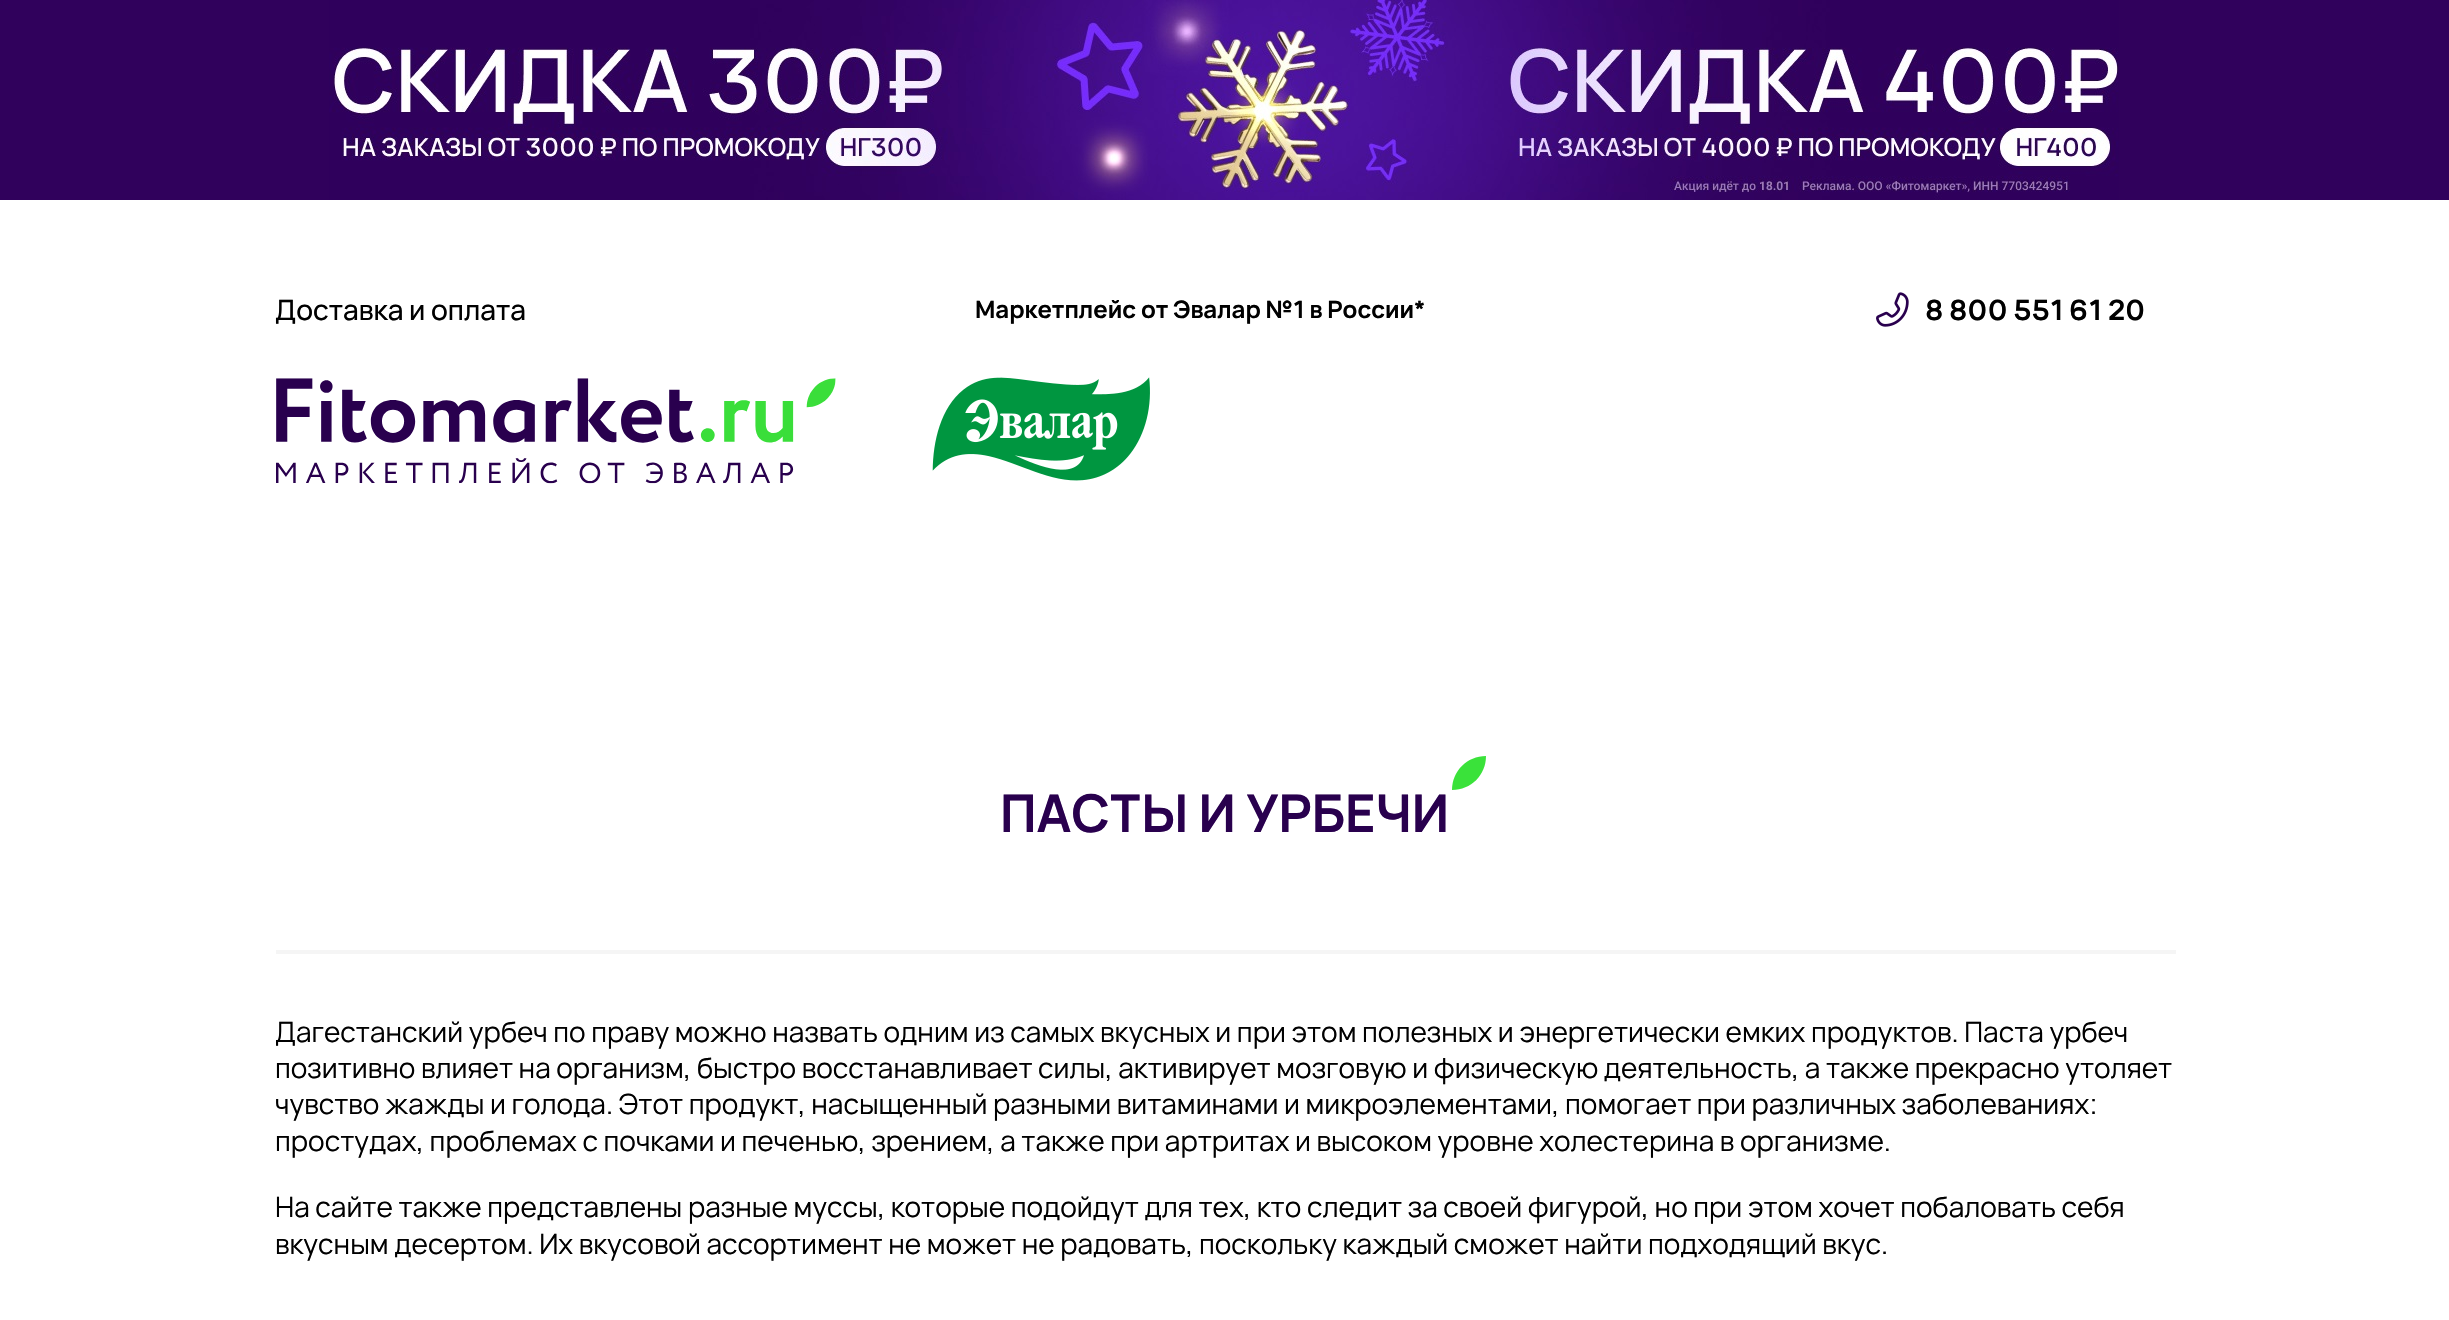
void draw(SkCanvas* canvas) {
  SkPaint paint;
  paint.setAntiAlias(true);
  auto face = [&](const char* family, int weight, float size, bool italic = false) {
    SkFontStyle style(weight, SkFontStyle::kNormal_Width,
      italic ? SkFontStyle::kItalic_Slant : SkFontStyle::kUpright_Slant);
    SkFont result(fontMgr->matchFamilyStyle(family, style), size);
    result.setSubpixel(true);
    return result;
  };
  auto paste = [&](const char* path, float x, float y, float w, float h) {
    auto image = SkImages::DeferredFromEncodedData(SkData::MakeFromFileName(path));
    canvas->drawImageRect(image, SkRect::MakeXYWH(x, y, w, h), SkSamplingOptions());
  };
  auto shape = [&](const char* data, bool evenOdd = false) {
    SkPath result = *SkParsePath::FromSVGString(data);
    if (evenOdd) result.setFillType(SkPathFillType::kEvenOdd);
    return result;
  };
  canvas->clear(0xffffffff);
  paint.setColor(0xff30015c);
  canvas->drawRect(SkRect::MakeXYWH(0, 0, 2449, 200), paint);
  paste("img/1.png", 329, 0, 1790, 200);
  paste("img/2.png", 1876, 292, 33, 35);
  paste("img/3.png", 276, 378, 560, 106);
  paste("img/4.png", 932, 377, 218, 104);
  paint.setColor(0xff3ae23a);
  canvas->drawPath(shape("M1486 756C1486 775 1471 790 1452 790C1452 771 1467 756 1486 756Z"), paint);
  paint.setColor(0xfff5f5f5);
  canvas->drawRect(SkRect::MakeXYWH(276, 950, 1900, 4), paint);
  auto f0 = face("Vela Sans", 500, 28);
  paint.setColor(0xff000000);
  canvas->drawString("Доставка и оплата", 275, 320, f0, paint);
  auto f1 = face("Vela Sans", 700, 24);
  canvas->drawString("Маркетплейс от Эвалар №1 в России*", 975, 318, f1, paint);
  auto f2 = face("Vela Sans", 700, 28);
  canvas->drawString("8 800 551 61 20", 1925, 320, f2, paint);
  auto f3 = face("Vela Sans", 700, 52);
  paint.setColor(0xff29004e);
  canvas->drawString("ПАСТЫ И УРБЕЧИ", 1000, 832, f3, paint);
  auto f4 = face("Vela Sans", 400, 28);
  paint.setColor(0xff000000);
  {
    const struct { const char* s; float x, y; } items[] = {
      {"Дагестанский урбеч по праву можно назвать одним из самых вкусных и при этом полезных и энергетически емких продуктов. Паста урбеч", 275, 1042},
      {"позитивно влияет на организм, быстро восстанавливает силы, активирует мозговую и физическую деятельность, а также прекрасно утоляет", 275, 1078},
      {"чувство жажды и голода. Этот продукт, насыщенный разными витаминами и микроэлементами, помогает при различных заболеваниях:", 275, 1114},
      {"простудах, проблемах с почками и печенью, зрением, а также при артритах и высоком уровне холестерина в организме.", 275, 1151},
      {"На сайте также представлены разные муссы, которые подойдут для тех, кто следит за своей фигурой, но при этом хочет побаловать себя", 275, 1217},
      {"вкусным десертом. Их вкусовой ассортимент не может не радовать, поскольку каждый сможет найти подходящий вкус.", 275, 1254},
    };
    for (auto [s, x, y] : items) {
      canvas->drawString(s, x, y, f4, paint);
    }
  }
}
